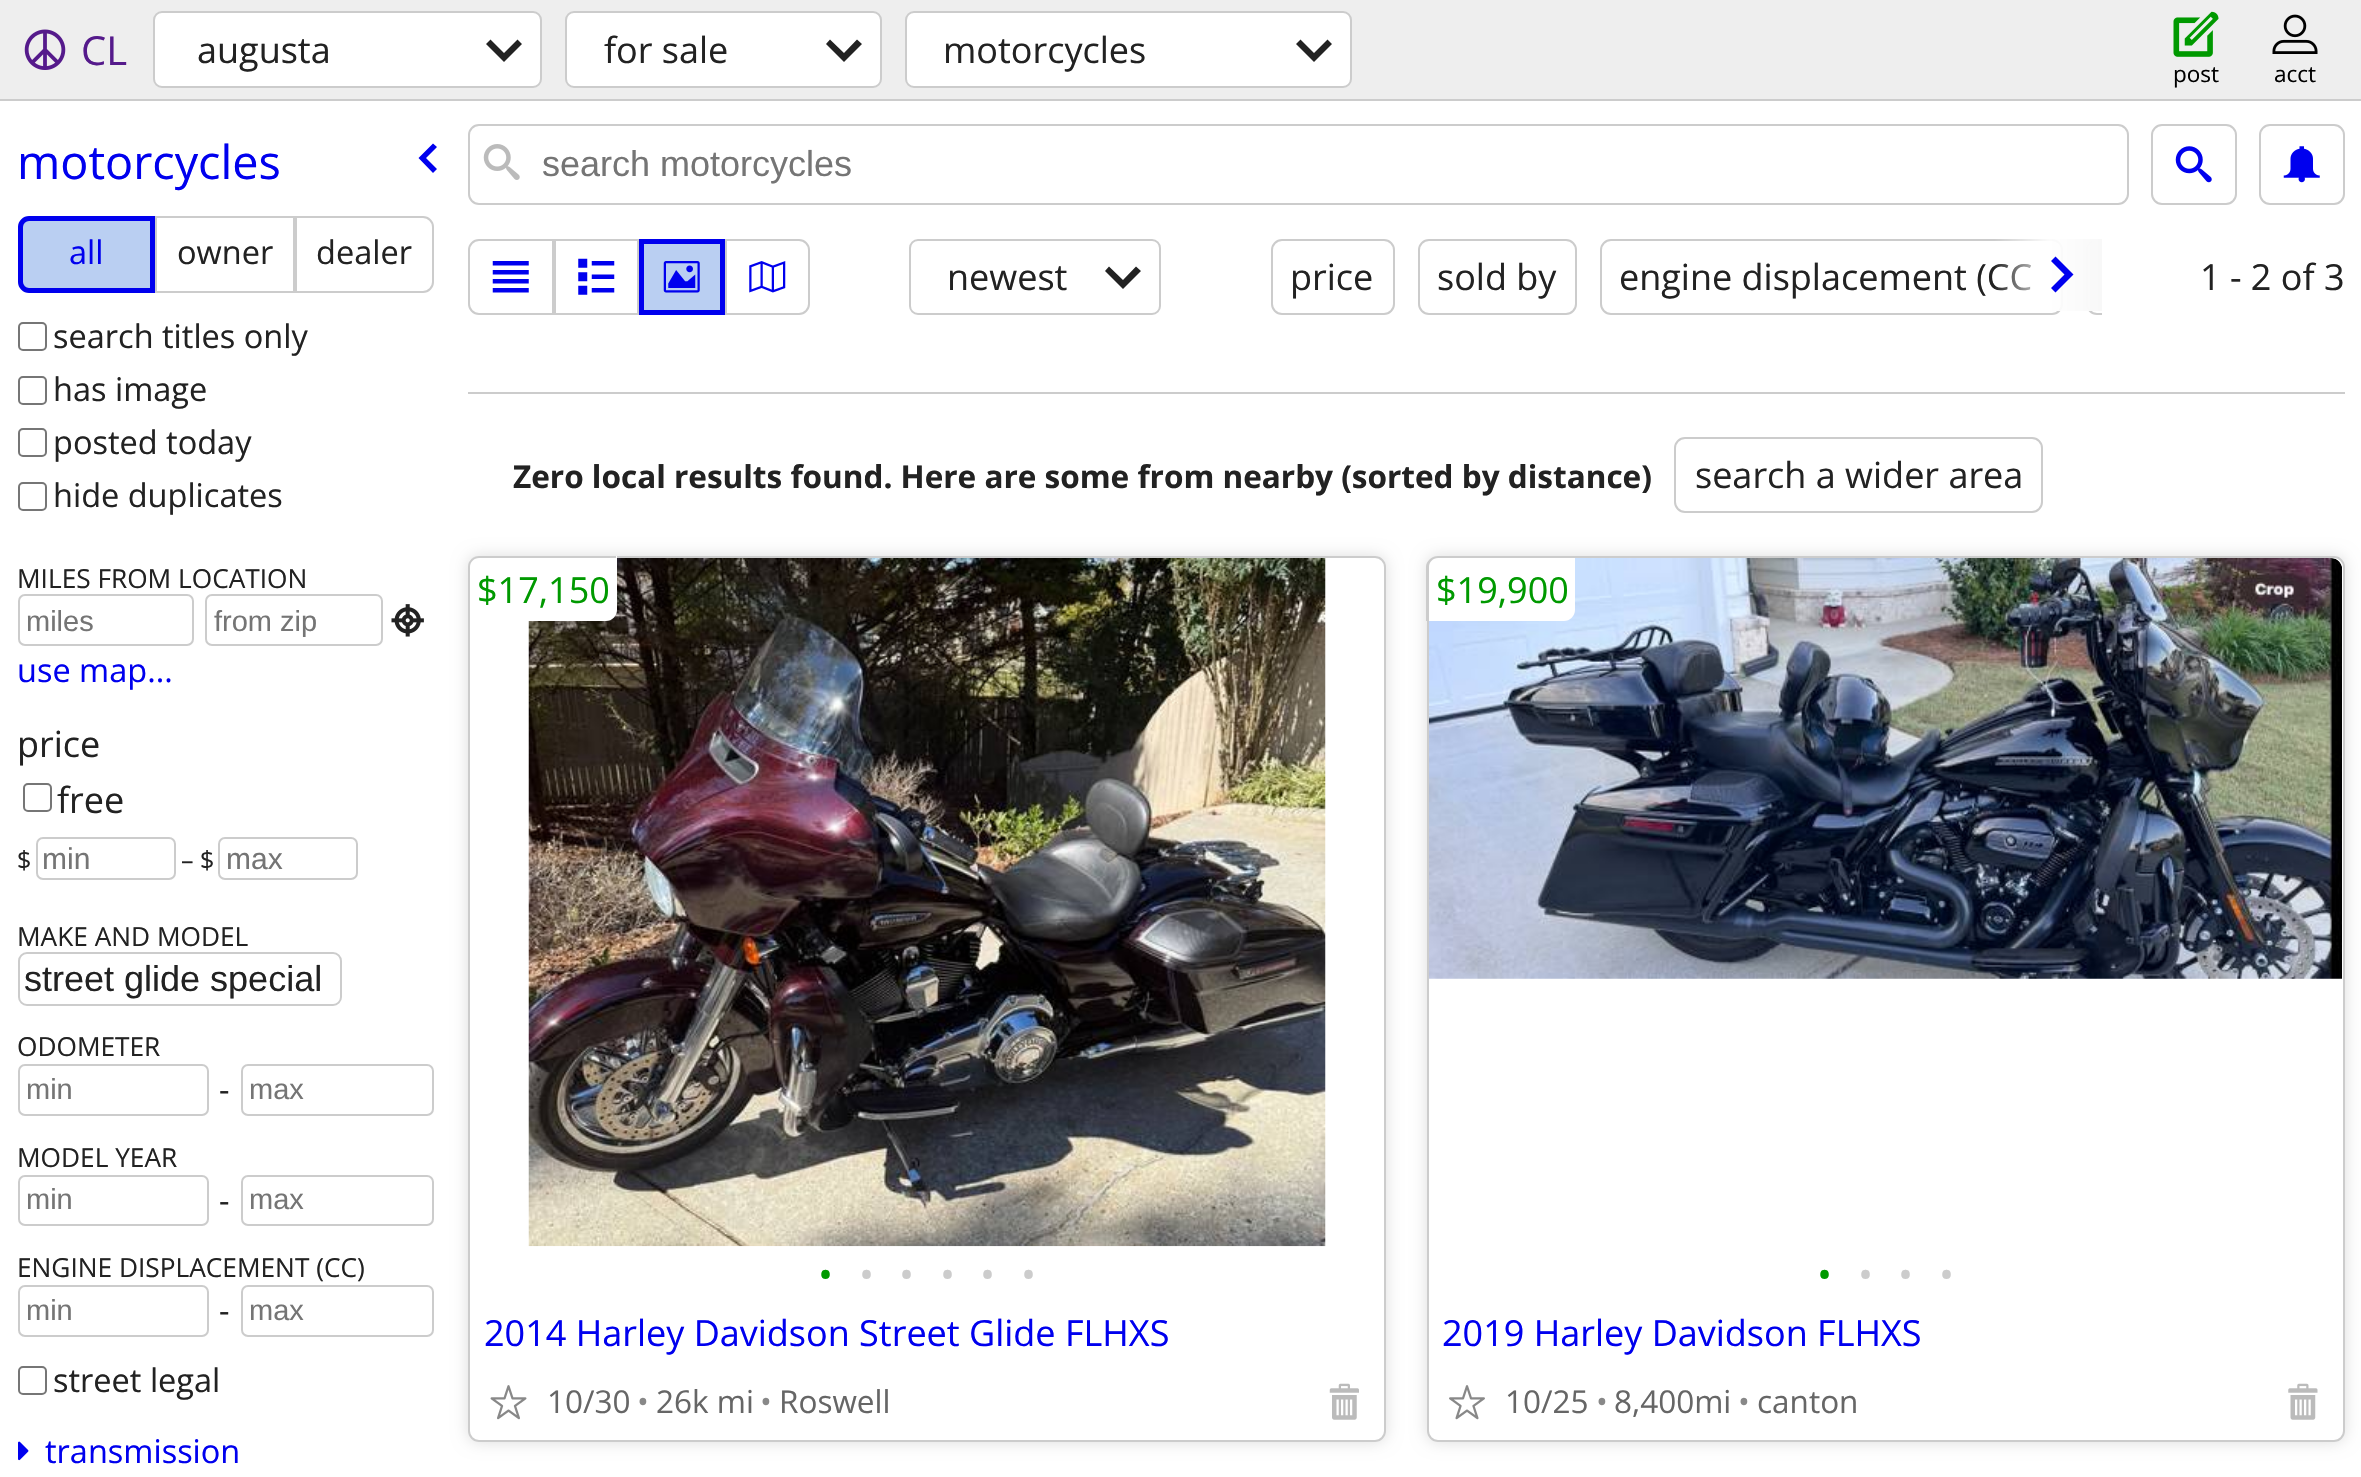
void draw(SkCanvas* canvas) {
  SkPaint paint;
  paint.setAntiAlias(true);
  auto face = [&](const char* family, int weight, float size, bool italic = false) {
    SkFontStyle style(weight, SkFontStyle::kNormal_Width,
      italic ? SkFontStyle::kItalic_Slant : SkFontStyle::kUpright_Slant);
    SkFont result(fontMgr->matchFamilyStyle(family, style), size);
    result.setSubpixel(true);
    return result;
  };
  auto paste = [&](const char* path, float x, float y, float w, float h) {
    auto image = SkImages::DeferredFromEncodedData(SkData::MakeFromFileName(path));
    canvas->drawImageRect(image, SkRect::MakeXYWH(x, y, w, h), SkSamplingOptions());
  };
  auto shape = [&](const char* data, bool evenOdd = false) {
    SkPath result = *SkParsePath::FromSVGString(data);
    if (evenOdd) result.setFillType(SkPathFillType::kEvenOdd);
    return result;
  };
  canvas->clear(0xffffffff);
  paint.setColor(0xffeeeeee);
  canvas->drawRect(SkRect::MakeXYWH(0, 0, 2361, 99), paint);
  paint.setColor(0xffcccccc);
  canvas->drawRect(SkRect::MakeXYWH(0, 99, 2361, 2), paint);
  paste("img/1.png", 24, 29, 42, 41);
  paint.setColor(0xffffffff);
  canvas->drawRoundRect(SkRect::MakeXYWH(154, 12, 387, 75), 8, 8, paint);
  paint.setStroke(true);
  paint.setStrokeWidth(2);
  paint.setColor(0xffcccccc);
  canvas->drawRoundRect(SkRect::MakeXYWH(154, 12, 387, 75), 8, 8, paint);
  paint.setStroke(false);
  paint.setColor(0xff222222);
  canvas->drawPath(shape("M522 44L517.5 39.5L504 53L490.5 39.5L486 44L504 62Z"), paint);
  paint.setColor(0xffffffff);
  canvas->drawRoundRect(SkRect::MakeXYWH(566, 12, 315, 75), 8, 8, paint);
  paint.setStroke(true);
  paint.setColor(0xffcccccc);
  canvas->drawRoundRect(SkRect::MakeXYWH(566, 12, 315, 75), 8, 8, paint);
  paint.setStroke(false);
  paint.setColor(0xff222222);
  canvas->drawPath(shape("M862 44L857 39.5L844 53L830 39.5L826 44L844 62Z"), paint);
  paint.setColor(0xffffffff);
  canvas->drawRoundRect(SkRect::MakeXYWH(906, 12, 445, 75), 8, 8, paint);
  paint.setStroke(true);
  paint.setColor(0xffcccccc);
  canvas->drawRoundRect(SkRect::MakeXYWH(906, 12, 445, 75), 8, 8, paint);
  paint.setStroke(false);
  paint.setColor(0xff222222);
  canvas->drawPath(shape("M1332 44L1327.5 39.5L1314 53L1300.5 39.5L1296 44L1314 62Z"), paint);
  paste("img/2.png", 2173, 11, 46, 46);
  paste("img/3.png", 2272, 14, 46, 40);
  paint.setColor(0xff0000ee);
  canvas->drawPath(shape("M433 173L437 169L426 158L437 147L433 143.5L418.5 158Z"), paint);
  paint.setColor(0xffbacff2);
  canvas->drawPath(shape("M29 218.5H152.5V290.5H29C24.5 290.5 20.5 286.5 20.5 282V227C20.5 222.5 24.5 218.5 29 218.5Z"), paint);
  paint.setStroke(true);
  paint.setStrokeWidth(5);
  paint.setColor(0xff0000ee);
  canvas->drawPath(shape("M29 218.5H152.5V290.5H29C24.5 290.5 20.5 286.5 20.5 282V227C20.5 222.5 24.5 218.5 29 218.5Z"), paint);
  paint.setStrokeWidth(2);
  paint.setColor(0xffcccccc);
  canvas->drawRect(SkRect::MakeXYWH(156, 217, 138, 75), paint);
  canvas->drawPath(shape("M296 217H423C428.5 217 433 221.5 433 227V282C433 287.5 428.5 292 423 292H296Z"), paint);
  paint.setColor(0xff767676);
  canvas->drawRoundRect(SkRect::MakeXYWH(19, 323, 27, 27), 4, 4, paint);
  canvas->drawRoundRect(SkRect::MakeXYWH(19, 377, 27, 27), 4, 4, paint);
  canvas->drawRoundRect(SkRect::MakeXYWH(19, 429, 27, 27), 4, 4, paint);
  canvas->drawRoundRect(SkRect::MakeXYWH(19, 483, 27, 27), 4, 4, paint);
  paint.setColor(0xffcccccc);
  canvas->drawRoundRect(SkRect::MakeXYWH(19, 595, 174, 50), 6, 6, paint);
  canvas->drawRoundRect(SkRect::MakeXYWH(206, 595, 176, 50), 6, 6, paint);
  paste("img/4.png", 391, 604, 33, 33);
  paint.setColor(0xff767676);
  canvas->drawRoundRect(SkRect::MakeXYWH(24, 784, 27, 27), 4, 4, paint);
  paint.setColor(0xffcccccc);
  canvas->drawRoundRect(SkRect::MakeXYWH(37, 838, 138, 41), 6, 6, paint);
  canvas->drawRoundRect(SkRect::MakeXYWH(219, 838, 138, 41), 6, 6, paint);
  canvas->drawRoundRect(SkRect::MakeXYWH(19, 953, 322, 52), 8, 8, paint);
  paint.setStroke(false);
  paint.setColor(0xffffffff);
  canvas->drawRoundRect(SkRect::MakeXYWH(20, 954, 320, 50), 9, 9, paint);
  paint.setStroke(true);
  paint.setColor(0xffcccccc);
  canvas->drawRoundRect(SkRect::MakeXYWH(19, 1065, 189, 50), 6, 6, paint);
  canvas->drawRoundRect(SkRect::MakeXYWH(242, 1065, 191, 50), 6, 6, paint);
  canvas->drawRoundRect(SkRect::MakeXYWH(19, 1176, 189, 49), 6, 6, paint);
  canvas->drawRoundRect(SkRect::MakeXYWH(242, 1176, 191, 49), 6, 6, paint);
  canvas->drawRoundRect(SkRect::MakeXYWH(19, 1286, 189, 50), 6, 6, paint);
  canvas->drawRoundRect(SkRect::MakeXYWH(242, 1286, 191, 50), 6, 6, paint);
  paint.setColor(0xff767676);
  canvas->drawRoundRect(SkRect::MakeXYWH(19, 1367, 27, 27), 4, 4, paint);
  paste("img/5.png", 18, 1441, 11, 20);
  paint.setColor(0xffcccccc);
  canvas->drawRoundRect(SkRect::MakeXYWH(469, 125, 1659, 79), 10, 10, paint);
  paste("img/6.png", 483, 144, 37, 36);
  canvas->drawRoundRect(SkRect::MakeXYWH(2152, 125, 84, 79), 10, 10, paint);
  paste("img/7.png", 2175, 146, 37, 37);
  canvas->drawRoundRect(SkRect::MakeXYWH(2260, 125, 84, 79), 10, 10, paint);
  paste("img/8.png", 2283, 146, 37, 37);
  canvas->drawPath(shape("M479 240H553V314H479C473.5 314 469 309.5 469 304V250C469 244.5 473.5 240 479 240Z"), paint);
  paste("img/9.png", 492, 261, 37, 32);
  canvas->drawRect(SkRect::MakeXYWH(555, 240, 83, 74), paint);
  paste("img/10.png", 578, 258, 37, 37);
  paint.setStroke(false);
  paint.setColor(0xffbacff2);
  canvas->drawRect(SkRect::MakeXYWH(641.5f, 241.5f, 81, 71), paint);
  paint.setStroke(true);
  paint.setStrokeWidth(5);
  paint.setColor(0xff0000ee);
  canvas->drawRect(SkRect::MakeXYWH(641.5f, 241.5f, 81, 71), paint);
  paste("img/11.png", 663, 261, 37, 32);
  paint.setStrokeWidth(2);
  paint.setColor(0xffcccccc);
  canvas->drawPath(shape("M726 240H799C804.5 240 809 244.5 809 250V304C809 309.5 804.5 314 799 314H726Z"), paint);
  paste("img/12.png", 749, 261, 37, 32);
  canvas->drawRoundRect(SkRect::MakeXYWH(910, 240, 250, 74), 8, 8, paint);
  paint.setStroke(false);
  paint.setColor(0xff222222);
  canvas->drawPath(shape("M1141 271L1136 266.5L1123 280L1109 266.5L1105 271L1123 289Z"), paint);
  paint.setStroke(true);
  paint.setColor(0xffcccccc);
  canvas->drawRoundRect(SkRect::MakeXYWH(1272, 240, 122, 74), 10, 10, paint);
  canvas->drawRoundRect(SkRect::MakeXYWH(1419, 240, 157, 74), 10, 10, paint);
  canvas->drawRoundRect(SkRect::MakeXYWH(1601, 240, 461, 74), 10, 10, paint);
  paint.setStroke(false);
  canvas->drawRect(SkRect::MakeXYWH(468, 392, 1877, 2), paint);
  paint.setStroke(true);
  canvas->drawRoundRect(SkRect::MakeXYWH(1675, 438, 367, 74), 10, 10, paint);
  canvas->save();
  canvas->clipPath(shape("M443 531H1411V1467H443ZM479 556H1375C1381 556 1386 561 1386 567V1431C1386 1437 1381 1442 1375 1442H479C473 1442 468 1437 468 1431V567C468 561 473 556 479 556Z", true), true);
  paint.setStroke(false);
  paint.setColor(0xffdddddd);
  paint.setMaskFilter(SkMaskFilter::MakeBlur(kNormal_SkBlurStyle, 8));
  canvas->drawRoundRect(SkRect::MakeXYWH(468, 556, 918, 886), 11, 11, paint);
  paint.setMaskFilter(nullptr);
  canvas->restore();
  paint.setStroke(true);
  paint.setColor(0xffcccccc);
  canvas->drawRoundRect(SkRect::MakeXYWH(469, 557, 916, 884), 10, 10, paint);
  paste("img/13.png", 528, 558, 798, 689);
  paint.setStroke(false);
  paint.setColor(0xffffffff);
  canvas->drawPath(shape("M479 556H617V610C617 616 612 621 606 621H468V567C468 561 473 556 479 556Z"), paint);
  paint.setColor(0xffcccccc);
  canvas->drawPath(shape("M479 556H616V610C616 616 611 621 605 621H468V567C468 561 473 556 479 556ZM479 558H616V610C616 616 611 621 605 621H470V567C470 562 474 558 479 558Z", true), paint);
  paste("img/14.png", 490, 1385, 37, 35);
  paste("img/15.png", 1329, 1383, 30, 37);
  canvas->save();
  canvas->clipPath(shape("M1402 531H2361V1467H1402ZM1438 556H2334C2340 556 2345 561 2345 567V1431C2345 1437 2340 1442 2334 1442H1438C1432 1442 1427 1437 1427 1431V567C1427 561 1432 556 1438 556Z", true), true);
  paint.setColor(0xffdddddd);
  paint.setMaskFilter(SkMaskFilter::MakeBlur(kNormal_SkBlurStyle, 8));
  canvas->drawRoundRect(SkRect::MakeXYWH(1427, 556, 918, 886), 11, 11, paint);
  paint.setMaskFilter(nullptr);
  canvas->restore();
  paint.setStroke(true);
  paint.setColor(0xffcccccc);
  canvas->drawRoundRect(SkRect::MakeXYWH(1428, 557, 916, 884), 10, 10, paint);
  paste("img/16.png", 1429, 558, 913, 421);
  paint.setStroke(false);
  paint.setColor(0xffffffff);
  canvas->drawPath(shape("M1438 556H1575V610C1575 616 1570 621 1564 621H1427V567C1427 561 1432 556 1438 556Z"), paint);
  paint.setColor(0xffcccccc);
  canvas->drawPath(shape("M1438 556H1575V610C1575 616 1570 621 1564 621H1426V567C1426 561 1432 556 1438 556ZM1438 558H1575V610C1575 616 1570 621 1564 621H1429V567C1429 562 1433 558 1438 558Z", true), paint);
  paste("img/17.png", 1449, 1385, 36, 35);
  paste("img/18.png", 2288, 1383, 30, 37);
  auto f0 = face("Open Sans", 400, 40);
  paint.setColor(0xff551a8b);
  canvas->drawString("CL", 81, 65, f0, paint);
  auto f1 = face("Open Sans", 400, 36);
  paint.setColor(0xff222222);
  {
    const struct { const char* s; float x, y; } items[] = {
      {"augusta", 197, 63},
      {"for sale", 604, 63},
      {"motorcycles", 943, 63},
    };
    for (auto [s, x, y] : items) {
      canvas->drawString(s, x, y, f1, paint);
    }
  }
  auto f2 = face("Open Sans", 400, 22.5f);
  paint.setColor(0xff000000);
  canvas->drawString("post", 2173, 82, f2, paint);
  canvas->drawString("acct", 2274, 82, f2, paint);
  auto f3 = face("Open Sans", 400, 46.75f);
  paint.setColor(0xff0000ee);
  canvas->drawString("motorcycles", 17, 179, f3, paint);
  auto f4 = face("Open Sans", 400, 32.5f);
  canvas->drawString("all", 69, 264, f4, paint);
  paint.setColor(0xff222222);
  {
    const struct { const char* s; float x, y; } items[] = {
      {"owner", 177, 264},
      {"dealer", 316, 264},
      {"search titles only", 53, 348},
      {"has image", 53, 401},
      {"posted today", 53, 454},
      {"hide duplicates", 53, 507},
    };
    for (auto [s, x, y] : items) {
      canvas->drawString(s, x, y, f4, paint);
    }
  }
  auto f5 = face("Open Sans", 400, 26.25f);
  canvas->drawString("MILES FROM LOCATION", 17, 588, f5, paint);
  auto f6 = face("Liberation Sans", 400, 29);
  paint.setColor(0xff757575);
  canvas->drawString("miles", 26, 631, f6, paint);
  canvas->drawString("from zip", 214, 631, f6, paint);
  paint.setColor(0xff0000ee);
  canvas->drawString("use map...", 17, 682, f4, paint);
  paint.setColor(0xff222222);
  canvas->drawString("price", 17, 757, f1, paint);
  canvas->drawString("free", 57, 813, f1, paint);
  auto f7 = face("Open Sans", 400, 25);
  canvas->drawString("$", 17, 869, f7, paint);
  auto f8 = face("Liberation Sans", 400, 30);
  paint.setColor(0xff757575);
  canvas->drawString("min", 42, 869, f8, paint);
  paint.setColor(0xff222222);
  canvas->drawString("– $", 181, 869, f7, paint);
  paint.setColor(0xff757575);
  canvas->drawString("max", 226, 869, f8, paint);
  paint.setColor(0xff222222);
  canvas->drawString("MAKE AND MODEL", 17, 946, f5, paint);
  auto f9 = face("Liberation Sans", 400, 36);
  canvas->drawString("street glide special", 24, 991, f9, paint);
  canvas->drawString("ODOMETER", 17, 1056, f5, paint);
  paint.setColor(0xff757575);
  canvas->drawString("min", 26, 1099, f6, paint);
  paint.setColor(0xff222222);
  canvas->drawString("-", 219, 1101, f4, paint);
  paint.setColor(0xff757575);
  canvas->drawString("max", 249, 1099, f6, paint);
  paint.setColor(0xff222222);
  canvas->drawString("MODEL YEAR", 17, 1167, f5, paint);
  paint.setColor(0xff757575);
  canvas->drawString("min", 26, 1209, f6, paint);
  paint.setColor(0xff222222);
  canvas->drawString("-", 219, 1212, f4, paint);
  paint.setColor(0xff757575);
  canvas->drawString("max", 249, 1209, f6, paint);
  paint.setColor(0xff222222);
  canvas->drawString("ENGINE DISPLACEMENT (CC)", 17, 1277, f5, paint);
  paint.setColor(0xff757575);
  canvas->drawString("min", 26, 1320, f6, paint);
  paint.setColor(0xff222222);
  canvas->drawString("-", 219, 1322, f4, paint);
  paint.setColor(0xff757575);
  canvas->drawString("max", 249, 1320, f6, paint);
  paint.setColor(0xff222222);
  canvas->drawString("street legal", 53, 1392, f4, paint);
  paint.setColor(0xff0000ee);
  canvas->drawString("transmission", 45, 1463, f4, paint);
  paint.setColor(0xff757575);
  canvas->drawString("search motorcycles", 542, 176, f9, paint);
  paint.setColor(0xff222222);
  {
    const struct { const char* s; float x, y; } items[] = {
      {"newest", 947, 290},
      {"price", 1290, 290},
      {"sold by", 1437, 290},
      {"engine displacement (CC", 1619, 290},
      {"1 - 2 of 3", 2200, 290},
    };
    for (auto [s, x, y] : items) {
      canvas->drawString(s, x, y, f1, paint);
    }
  }
  canvas->save();
  canvas->clipRect(SkRect::MakeXYWH(1271, 239, 831, 76));
  paint.setStroke(true);
  paint.setColor(0xffcccccc);
  canvas->drawRoundRect(SkRect::MakeXYWH(2087, 240, 223, 74), 10, 10, paint);
  canvas->restore();
  paint.setStroke(false);
  {
    const SkColor colors[] = {0x00ffffff, 0xe6ffffff, 0xfff8f8f8};
    const float stops[] = {0, 0.5f, 1};
    const SkPoint ends[] = {{1994, 275}, {2102, 275}};
    paint.setShader(SkGradientShader::MakeLinear(ends, colors, stops, 3, SkTileMode::kClamp));
    paint.setAlpha(255);
  }
  canvas->drawRect(SkRect::MakeXYWH(1995, 239, 107, 72), paint);
  paint.setShader(nullptr);
  paint.setColor(0xff0000ee);
  canvas->drawPath(shape("M2055.5 256.5L2051 261L2064.5 274.5L2051 288L2055.5 292.5L2073.5 274.5Z"), paint);
  auto f10 = face("Open Sans", 700, 31.5f);
  paint.setColor(0xff222222);
  canvas->drawString("Zero local results found. Here are some from nearby (sorted by distance)", 513, 488, f10, paint);
  canvas->drawString("search a wider area", 1695, 488, f1, paint);
  paint.setColor(0xff009900);
  canvas->drawString("$17,150", 477, 603, f1, paint);
  canvas->drawString("•", 818, 1289, f0, paint);
  paint.setColor(0xffcccccc);
  {
    const struct { const char* s; float x, y; } items[] = {
      {"•", 859, 1289},
      {"•", 899, 1289},
      {"•", 940, 1289},
      {"•", 980, 1289},
      {"•", 1021, 1289},
    };
    for (auto [s, x, y] : items) {
      canvas->drawString(s, x, y, f0, paint);
    }
  }
  paint.setColor(0xff0000ee);
  canvas->drawString("2014 Harley Davidson Street Glide FLHXS", 484, 1346, f1, paint);
  auto f11 = face("Open Sans", 400, 31.5f);
  paint.setColor(0xff666666);
  canvas->drawString("10/30", 547, 1413, f11, paint);
  paint.setColor(0xff888888);
  canvas->drawString("•", 637, 1413, f11, paint);
  paint.setColor(0xff666666);
  canvas->drawString("26k mi", 656, 1413, f11, paint);
  paint.setColor(0xff888888);
  canvas->drawString("•", 760, 1413, f11, paint);
  paint.setColor(0xff666666);
  canvas->drawString("Roswell", 779, 1413, f11, paint);
  paint.setColor(0xff009900);
  canvas->drawString("$19,900", 1436, 603, f1, paint);
  canvas->drawString("•", 1817, 1289, f0, paint);
  paint.setColor(0xffcccccc);
  {
    const struct { const char* s; float x, y; } items[] = {
      {"•", 1858, 1289},
      {"•", 1898, 1289},
      {"•", 1939, 1289},
    };
    for (auto [s, x, y] : items) {
      canvas->drawString(s, x, y, f0, paint);
    }
  }
  paint.setColor(0xff0000ee);
  canvas->drawString("2019 Harley Davidson FLHXS", 1442, 1346, f1, paint);
  paint.setColor(0xff666666);
  canvas->drawString("10/25", 1505, 1413, f11, paint);
  paint.setColor(0xff888888);
  canvas->drawString("•", 1596, 1413, f11, paint);
  paint.setColor(0xff666666);
  canvas->drawString("8,400mi", 1614, 1413, f11, paint);
  paint.setColor(0xff888888);
  canvas->drawString("•", 1738, 1413, f11, paint);
  paint.setColor(0xff666666);
  canvas->drawString("canton", 1757, 1413, f11, paint);
}
